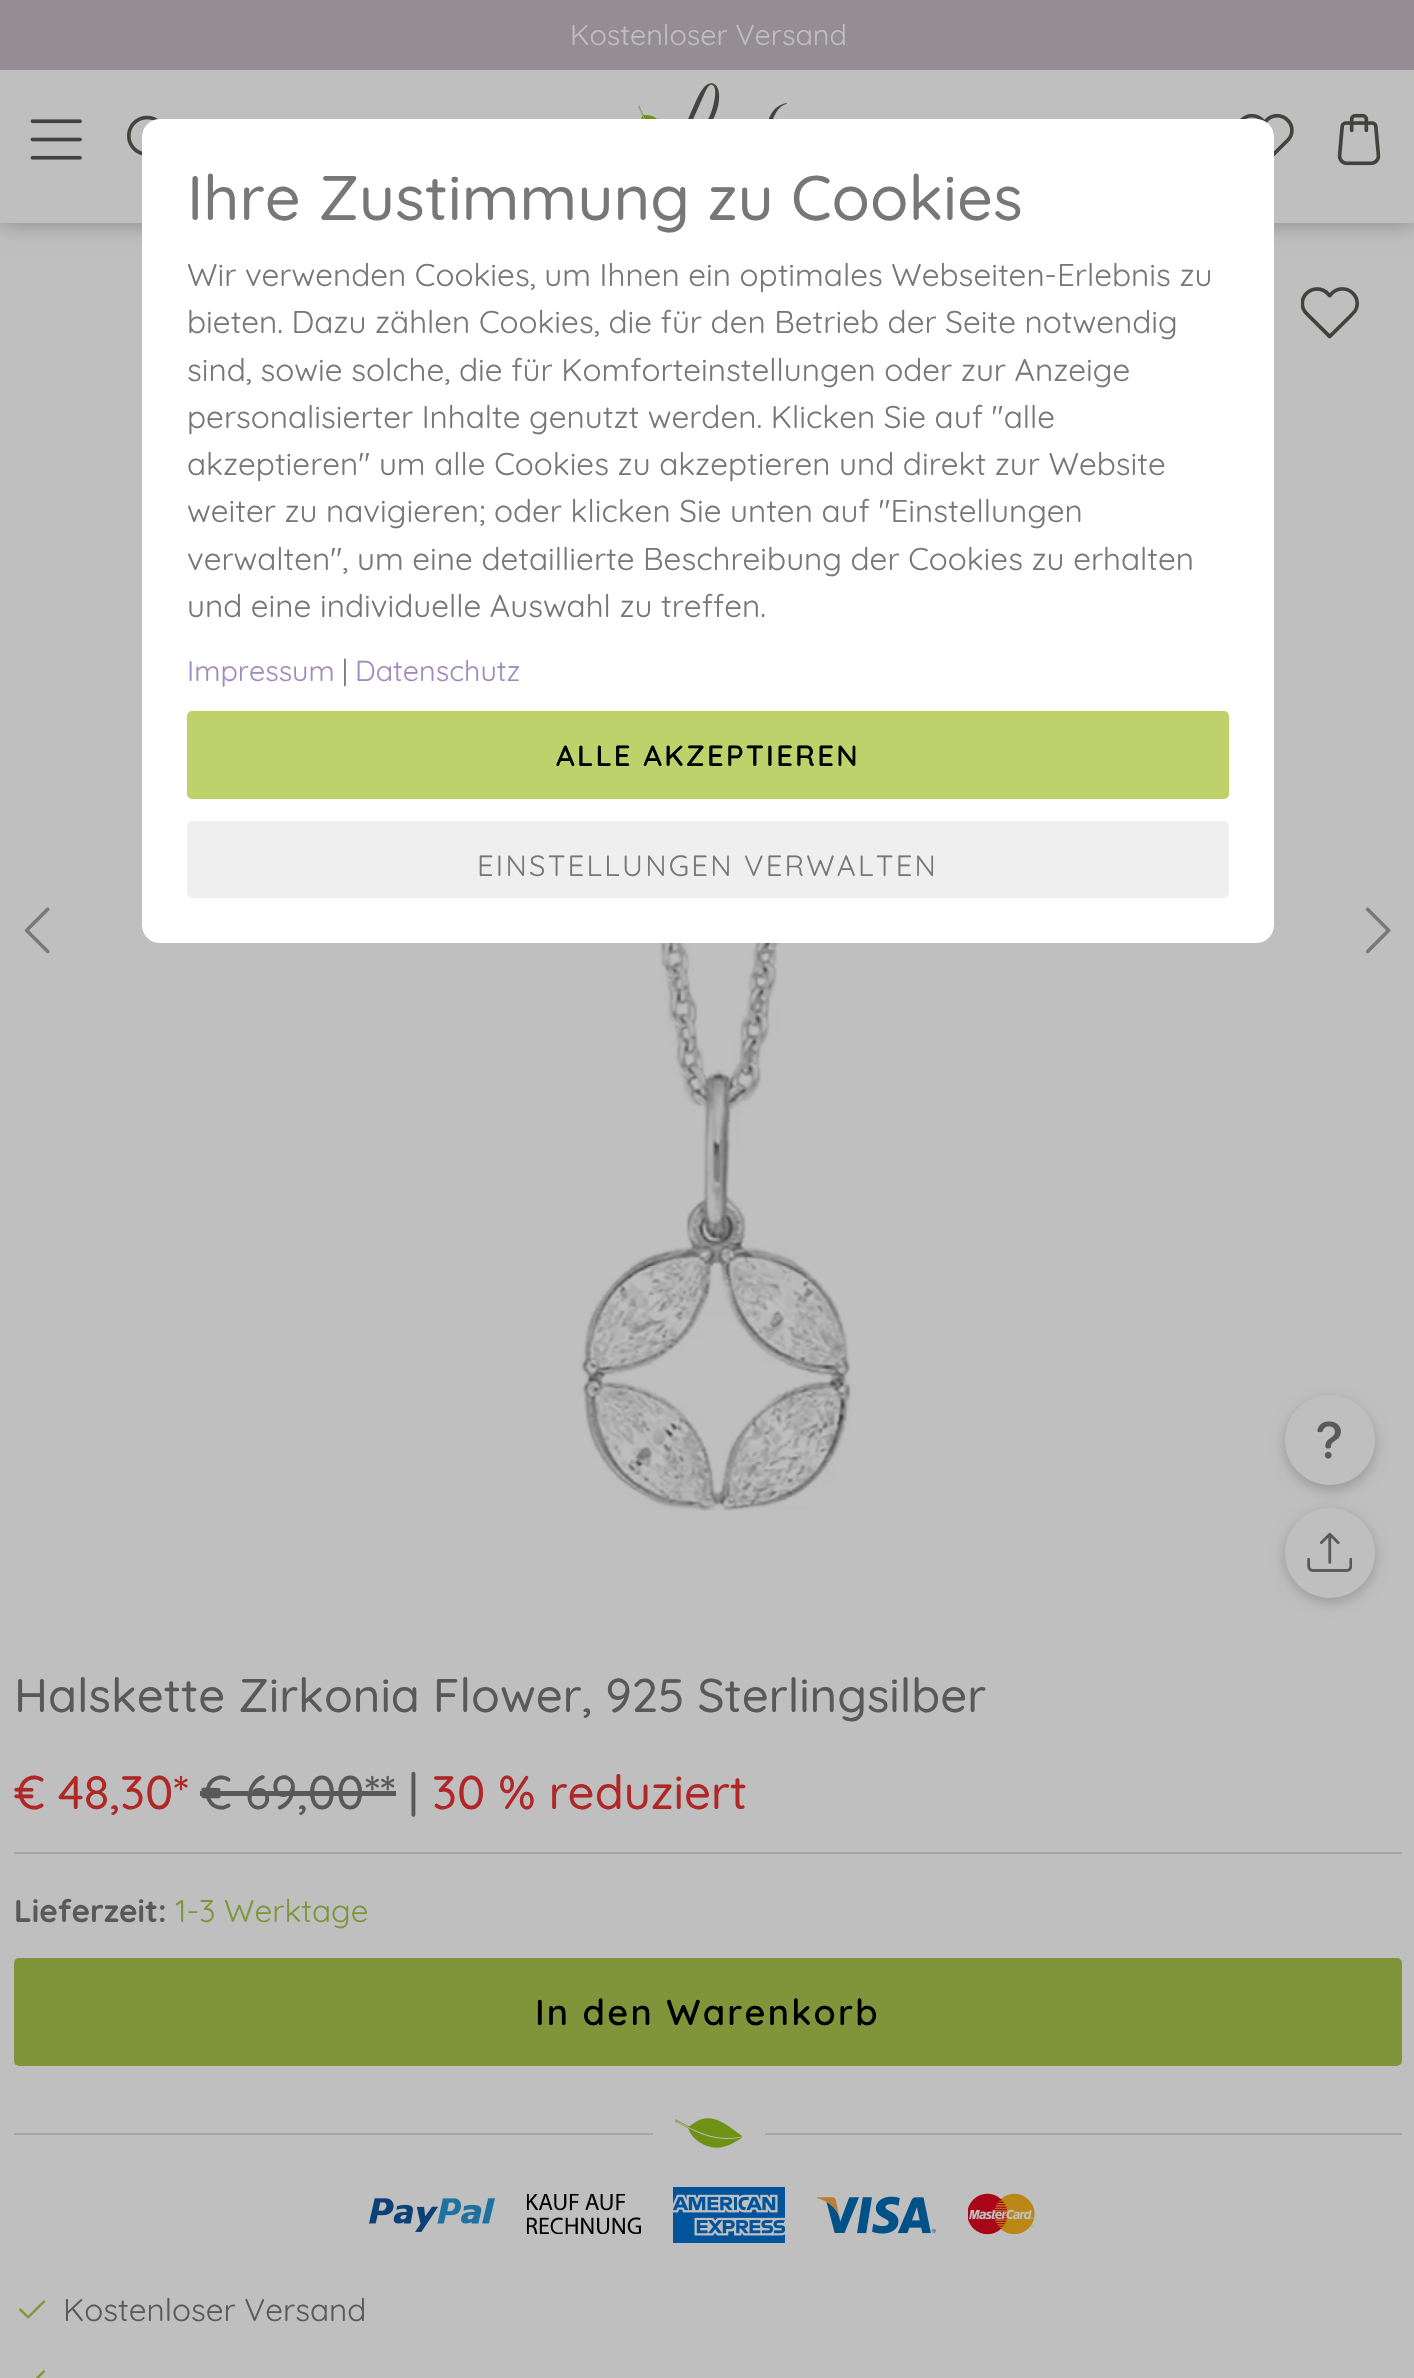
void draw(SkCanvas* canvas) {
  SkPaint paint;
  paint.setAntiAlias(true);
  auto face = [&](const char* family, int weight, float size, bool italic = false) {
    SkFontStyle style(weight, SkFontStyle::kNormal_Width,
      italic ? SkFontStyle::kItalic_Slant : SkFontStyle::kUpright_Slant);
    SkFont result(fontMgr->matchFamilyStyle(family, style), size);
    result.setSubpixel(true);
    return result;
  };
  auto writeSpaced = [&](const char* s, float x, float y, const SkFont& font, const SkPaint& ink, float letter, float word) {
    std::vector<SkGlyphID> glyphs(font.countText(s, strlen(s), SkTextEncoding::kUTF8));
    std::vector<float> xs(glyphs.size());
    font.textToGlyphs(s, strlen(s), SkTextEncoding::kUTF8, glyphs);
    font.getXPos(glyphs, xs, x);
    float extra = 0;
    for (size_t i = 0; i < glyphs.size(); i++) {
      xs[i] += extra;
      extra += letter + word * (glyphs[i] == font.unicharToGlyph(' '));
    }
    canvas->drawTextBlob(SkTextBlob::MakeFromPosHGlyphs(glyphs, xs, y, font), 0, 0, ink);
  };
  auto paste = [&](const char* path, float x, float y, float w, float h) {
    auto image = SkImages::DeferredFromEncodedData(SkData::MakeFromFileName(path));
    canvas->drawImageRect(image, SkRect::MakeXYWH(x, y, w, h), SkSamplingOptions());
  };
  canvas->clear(0xffbfbfbf);
  paint.setColor(0x4d000000);
  paint.setMaskFilter(SkMaskFilter::MakeBlur(kNormal_SkBlurStyle, 11));
  canvas->drawRect(SkRect::MakeXYWH(0, 0, 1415, 223), paint);
  paint.setMaskFilter(nullptr);
  paint.setColor(0xffbfbfbf);
  canvas->drawRect(SkRect::MakeXYWH(0, 70, 1414, 153), paint);
  paint.setColor(0xff948e94);
  canvas->drawRect(SkRect::MakeXYWH(0, 0, 1414, 70), paint);
  paste("img/1.png", 638, 83, 149, 36);
  paste("img/2.png", 30, 119, 52, 41);
  paste("img/3.png", 127, 115, 33, 41);
  paste("img/4.png", 1240, 113, 54, 44);
  paste("img/5.png", 1337, 113, 44, 53);
  paint.setColor(0xffffffff);
  canvas->drawRoundRect(SkRect::MakeXYWH(142, 119, 1132, 824), 18, 18, paint);
  paint.setColor(0xffbed16b);
  canvas->drawRoundRect(SkRect::MakeXYWH(188, 712, 1040, 86), 4, 4, paint);
  paint.setStroke(true);
  paint.setStrokeWidth(2);
  canvas->drawRoundRect(SkRect::MakeXYWH(188, 712, 1040, 86), 4, 4, paint);
  paint.setStroke(false);
  paint.setColor(0xffefefef);
  canvas->drawRoundRect(SkRect::MakeXYWH(187, 821, 1042, 77), 5, 5, paint);
  paste("img/6.png", 1301, 287, 58, 52);
  paste("img/7.png", 24, 907, 26, 47);
  paste("img/8.png", 1365, 907, 26, 47);
  paste("img/9.png", 547, 943, 339, 568);
  paint.setColor(0x33000000);
  paint.setMaskFilter(SkMaskFilter::MakeBlur(kNormal_SkBlurStyle, 7));
  canvas->drawRoundRect(SkRect::MakeXYWH(1285, 1400, 90, 90), 45, 45, paint);
  paint.setMaskFilter(nullptr);
  paint.setColor(0xffbfbfbf);
  canvas->drawCircle(1330, 1440, 45, paint);
  paste("img/10.png", 1317, 1421, 24, 38);
  paint.setColor(0x33000000);
  paint.setMaskFilter(SkMaskFilter::MakeBlur(kNormal_SkBlurStyle, 7));
  canvas->drawRoundRect(SkRect::MakeXYWH(1285, 1512, 90, 90), 45, 45, paint);
  paint.setMaskFilter(nullptr);
  paint.setColor(0xffbfbfbf);
  canvas->drawCircle(1330, 1553, 45, paint);
  paste("img/11.png", 1307, 1532, 45, 40);
  paint.setColor(0xff595959);
  canvas->drawRect(SkRect::MakeXYWH(200, 1791, 196, 5), paint);
  paint.setColor(0xffa6a6a6);
  canvas->drawRect(SkRect::MakeXYWH(14, 1852, 1388, 2), paint);
  paint.setColor(0xff809539);
  canvas->drawRoundRect(SkRect::MakeXYWH(14, 1958, 1388, 108), 5, 5, paint);
  paint.setColor(0xffa6a6a6);
  canvas->drawRect(SkRect::MakeXYWH(14, 2133, 1388, 2), paint);
  paint.setColor(0xffbfbfbf);
  canvas->drawRect(SkRect::MakeXYWH(653, 2133, 112, 2), paint);
  paste("img/12.png", 675, 2118, 68, 30);
  paste("img/13.png", 369, 2198, 126, 34);
  paste("img/14.png", 527, 2194, 114, 40);
  paste("img/15.png", 673, 2187, 112, 56);
  paste("img/16.png", 817, 2196, 119, 38);
  paste("img/17.png", 968, 2193, 67, 42);
  paste("img/18.png", 19, 2300, 27, 19);
  paste("img/19.png", 35, 2370, 11, 8);
  auto f0 = face("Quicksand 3", 300, 28.75f);
  canvas->drawString("Kostenloser Versand", 570, 45, f0, paint);
  auto f1 = face("Quicksand", 300, 63);
  paint.setColor(0xff777777);
  canvas->drawString("Ihre Zustimmung zu Cookies", 187, 220, f1, paint);
  auto f2 = face("Quicksand 3", 300, 31.5f);
  {
    const struct { const char* s; float x, y; } items[] = {
      {"Wir verwenden Cookies, um Ihnen ein optimales Webseiten-Erlebnis zu", 187, 286},
      {"bieten. Dazu zählen Cookies, die für den Betrieb der Seite notwendig", 187, 333},
      {"sind, sowie solche, die für Komforteinstellungen oder zur Anzeige", 187, 381},
      {"personalisierter Inhalte genutzt werden. Klicken Sie auf \"alle", 187, 428},
      {"akzeptieren\" um alle Cookies zu akzeptieren und direkt zur Website", 187, 475},
      {"weiter zu navigieren; oder klicken Sie unten auf \"Einstellungen", 187, 522},
      {"verwalten\", um eine detaillierte Beschreibung der Cookies zu erhalten", 187, 570},
      {"und eine individuelle Auswahl zu treffen.", 187, 617},
    };
    for (auto [s, x, y] : items) {
      canvas->drawString(s, x, y, f2, paint);
    }
  }
  paint.setColor(0xffa18abd);
  canvas->drawString("Impressum", 187, 681, f0, paint);
  paint.setColor(0xff777777);
  canvas->drawString("|", 342, 681, f0, paint);
  paint.setColor(0xffa18abd);
  canvas->drawString("Datenschutz", 355, 681, f0, paint);
  auto f3 = face("Quicksand", 600, 29.25f);
  paint.setColor(0xff000000);
  writeSpaced("ALLE AKZEPTIEREN", 556, 766, f3, paint, 2.25f, 0);
  auto f4 = face("Quicksand 3", 300, 29.25f);
  paint.setColor(0xff777777);
  writeSpaced("EINSTELLUNGEN VERWALTEN", 477, 876, f4, paint, 2.25f, 0);
  auto f5 = face("Quicksand", 300, 47.25f);
  paint.setColor(0xff595959);
  canvas->drawString("Halskette Zirkonia Flower, 925 Sterlingsilber", 14, 1712, f5, paint);
  paint.setColor(0xffaf2727);
  canvas->drawString("€ 48,30*", 14, 1809, f5, paint);
  paint.setColor(0xff595959);
  canvas->drawString("€ 69,00** |", 201, 1809, f5, paint);
  paint.setColor(0xffaf2727);
  canvas->drawString("30 % reduziert", 432, 1809, f5, paint);
  auto f6 = face("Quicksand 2", 300, 31.5f);
  paint.setColor(0xff595959);
  canvas->drawString("Lieferzeit:", 14, 1922, f6, paint);
  paint.setColor(0xff809539);
  canvas->drawString("1-3 Werktage", 175, 1922, f2, paint);
  auto f7 = face("Quicksand", 600, 36);
  paint.setColor(0xff000000);
  writeSpaced("In den Warenkorb", 535, 2025, f7, paint, 2.25f, 0);
  paint.setColor(0xff595959);
  canvas->drawString("Kostenloser Versand", 63, 2321, f2, paint);
}
